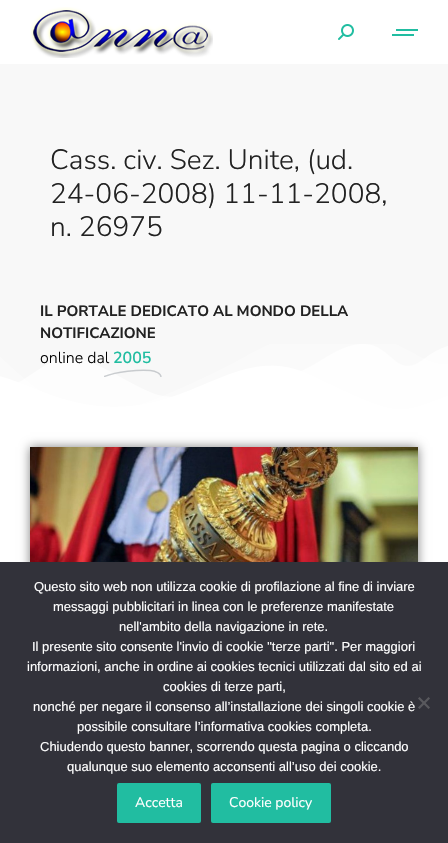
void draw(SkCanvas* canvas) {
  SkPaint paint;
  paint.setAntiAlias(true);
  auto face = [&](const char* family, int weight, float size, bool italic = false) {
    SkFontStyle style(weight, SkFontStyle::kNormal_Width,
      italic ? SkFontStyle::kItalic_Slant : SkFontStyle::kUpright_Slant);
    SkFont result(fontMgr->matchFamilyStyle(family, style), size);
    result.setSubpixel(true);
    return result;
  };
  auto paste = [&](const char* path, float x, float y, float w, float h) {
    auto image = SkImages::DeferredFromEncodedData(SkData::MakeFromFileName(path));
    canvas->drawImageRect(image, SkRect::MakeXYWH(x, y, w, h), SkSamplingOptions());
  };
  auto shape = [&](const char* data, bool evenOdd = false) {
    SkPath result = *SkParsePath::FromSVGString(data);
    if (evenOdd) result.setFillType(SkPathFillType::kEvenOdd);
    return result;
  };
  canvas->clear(0xffffffff);
  paste("img/1.png", 30, 7, 183, 51);
  paste("img/2.png", 338, 24, 16, 16);
  {
    const struct { float x, y, w, h; SkColor color; } items[] = {
      {396, 29, 22, 2, 0xff21bda1},
      {392, 34, 22, 2, 0xff21bda1},
      {0, 64, 448, 346, 0xfff8f8f8},
    };
    for (auto [x, y, w, h, color] : items) {
      paint.setColor(color);
      canvas->drawRect(SkRect::MakeXYWH(x, y, w, h), paint);
    }
  }
  paste("img/3.png", 0, 344, 448, 73);
  canvas->save();
  canvas->clipRect(SkRect::MakeXYWH(104, 340, 58, 37));
  paint.setStroke(true);
  paint.setStrokeWidth(1.4f);
  paint.setStrokeCap(SkPaint::kRound_Cap);
  paint.setStrokeJoin(SkPaint::kRound_Join);
  paint.setColor(0x96a6abb0);
  canvas->drawPath(shape("M104.5 376.5C116.5 371.5 139 369.5 150.5 370.5C155.5 371 161 373.5 161 377"), paint);
  canvas->restore();
  paint.setStroke(false);
  paint.setColor(0x80000000);
  paint.setMaskFilter(SkMaskFilter::MakeBlur(kNormal_SkBlurStyle, 5));
  canvas->drawRect(SkRect::MakeXYWH(30, 447, 388, 194), paint);
  paint.setMaskFilter(nullptr);
  paste("img/4.png", 30, 447, 388, 115);
  paint.setColor(0xff32323a);
  canvas->drawRect(SkRect::MakeXYWH(0, 562, 448, 281), paint);
  paint.setColor(0xff59595d);
  canvas->drawPath(shape("M428.5 697L430 698.5L419.5 709L418 707.5Z"), paint);
  canvas->drawPath(shape("M418 698.5L419.5 697L430 707.5L428.5 709Z"), paint);
  paint.setColor(0xff21bda1);
  canvas->drawRoundRect(SkRect::MakeXYWH(117, 783, 84, 40), 2, 2, paint);
  canvas->drawRoundRect(SkRect::MakeXYWH(211, 783, 120, 40), 2, 2, paint);
  auto f0 = face("Nunito Sans", 300, 28);
  paint.setColor(0xff222222);
  {
    const struct { const char* s; float x, y; } items[] = {
      {"Cass. civ. Sez. Unite, (ud.", 50, 169},
      {"24-06-2008) 11-11-2008,", 50, 203},
      {"n. 26975", 50, 236},
    };
    for (auto [s, x, y] : items) {
      canvas->drawString(s, x, y, f0, paint);
    }
  }
  auto f1 = face("Nunito Sans", 700, 15);
  canvas->drawString("IL PORTALE DEDICATO AL MONDO DELLA", 40, 316, f1, paint);
  canvas->drawString("NOTIFICAZIONE", 40, 338, f1, paint);
  auto f2 = face("Nunito Sans", 300, 16);
  paint.setColor(0xff000000);
  canvas->drawString("online dal", 40, 363, f2, paint);
  auto f3 = face("Nunito Sans", 600, 16);
  paint.setColor(0xff21bda1);
  canvas->drawString("2005", 113, 363, f3, paint);
  auto f4 = face("Liberation Sans", 400, 13);
  paint.setColor(0xffffffff);
  {
    const struct { const char* s; float x, y; } items[] = {
      {"Questo sito web non utilizza cookie di profilazione al fine di inviare", 34, 591},
      {"messaggi pubblicitari in linea con le preferenze manifestate", 53, 611},
      {"nell'ambito della navigazione in rete.", 119, 631},
      {"Il presente sito consente l'invio di cookie \"terze parti\". Per maggiori", 32, 651},
      {"informazioni, anche in ordine ai cookies tecnici utilizzati dal sito ed ai", 27, 671},
      {"cookies di terze parti,", 163, 691},
      {"nonché per negare il consenso all’installazione dei singoli cookie è", 33, 711},
      {"possibile consultare l’informativa cookies completa.", 77, 731},
      {"Chiudendo questo banner, scorrendo questa pagina o cliccando", 40, 751},
      {"qualunque suo elemento acconsenti all’uso dei cookie.", 67, 771},
    };
    for (auto [s, x, y] : items) {
      canvas->drawString(s, x, y, f4, paint);
    }
  }
  auto f5 = face("Nunito Sans", 400, 14);
  canvas->drawString("Accetta", 135, 807, f5, paint);
  canvas->drawString("Cookie policy", 229, 807, f5, paint);
}
